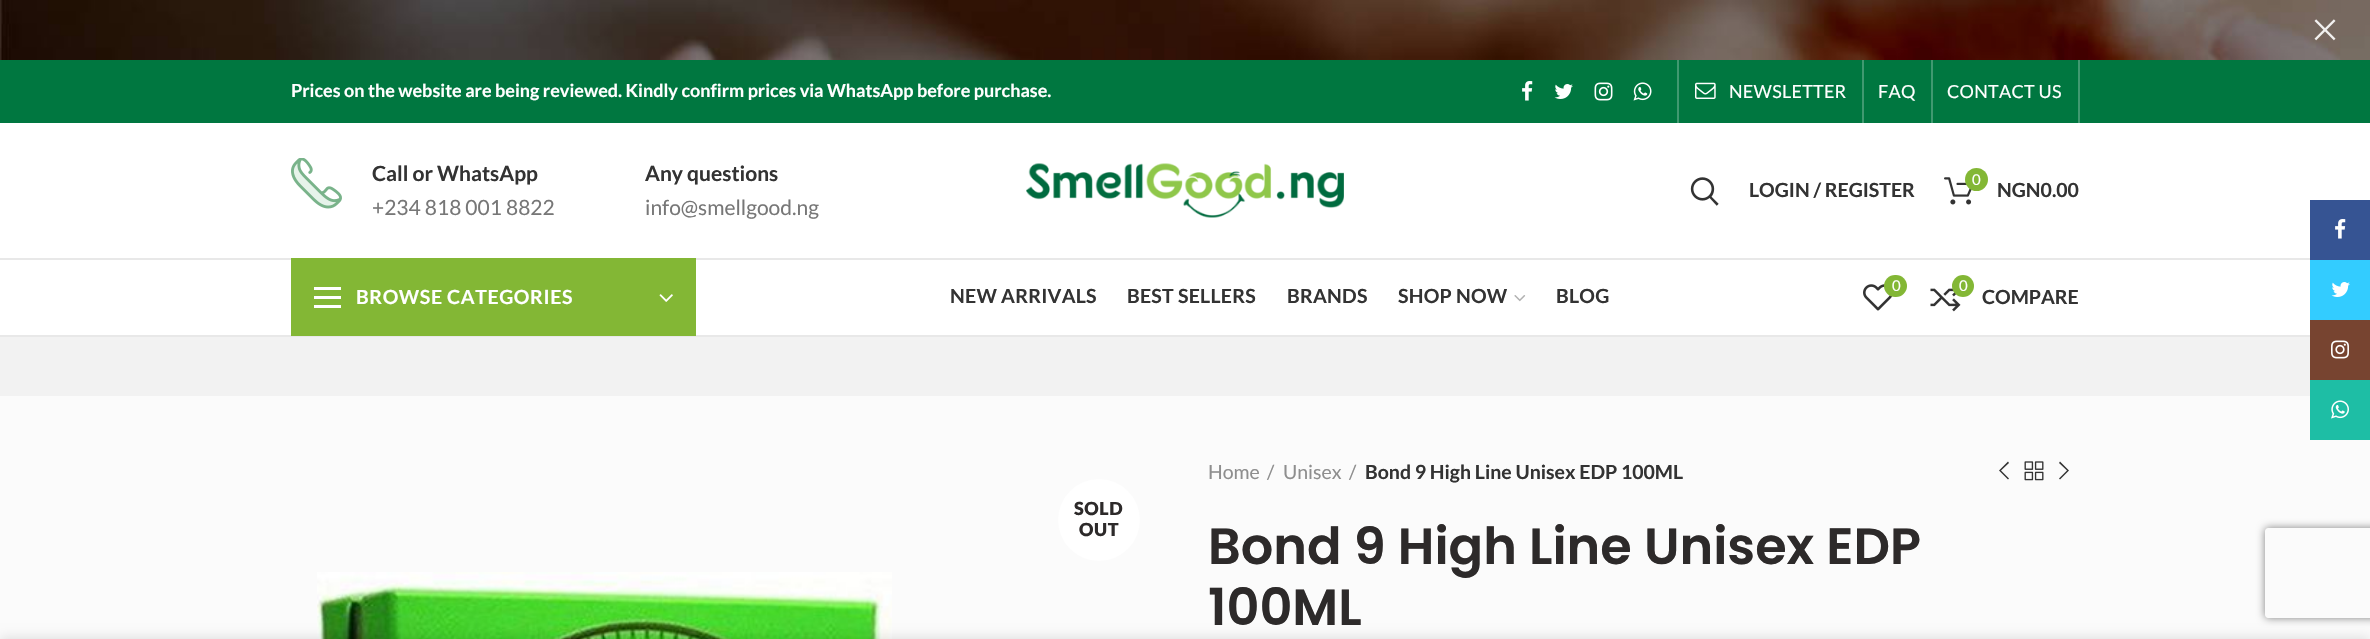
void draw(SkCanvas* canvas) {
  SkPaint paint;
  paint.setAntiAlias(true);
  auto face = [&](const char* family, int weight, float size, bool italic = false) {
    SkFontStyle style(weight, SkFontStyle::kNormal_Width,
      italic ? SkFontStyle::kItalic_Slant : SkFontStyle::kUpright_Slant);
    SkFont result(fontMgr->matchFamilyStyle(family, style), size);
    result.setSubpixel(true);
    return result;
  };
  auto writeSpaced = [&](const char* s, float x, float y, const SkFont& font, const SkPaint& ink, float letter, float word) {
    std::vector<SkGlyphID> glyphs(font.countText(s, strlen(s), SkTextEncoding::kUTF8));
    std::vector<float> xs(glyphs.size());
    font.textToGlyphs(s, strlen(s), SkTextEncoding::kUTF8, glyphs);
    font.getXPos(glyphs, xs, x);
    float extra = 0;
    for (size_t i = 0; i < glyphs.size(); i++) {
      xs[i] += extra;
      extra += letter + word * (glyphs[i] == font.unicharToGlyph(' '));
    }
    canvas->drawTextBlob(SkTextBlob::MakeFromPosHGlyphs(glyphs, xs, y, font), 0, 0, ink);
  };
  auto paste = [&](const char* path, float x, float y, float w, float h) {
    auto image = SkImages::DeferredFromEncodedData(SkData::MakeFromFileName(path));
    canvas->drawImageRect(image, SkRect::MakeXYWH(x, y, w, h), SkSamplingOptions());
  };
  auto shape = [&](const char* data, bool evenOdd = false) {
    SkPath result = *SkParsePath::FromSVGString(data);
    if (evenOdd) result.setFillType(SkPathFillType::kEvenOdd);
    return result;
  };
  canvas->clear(0xffffffff);
  paste("img/1.png", 0, 0, 2370, 60);
  paste("img/2.png", 2314, 19, 22, 22);
  paint.setColor(0xff007740);
  canvas->drawRect(SkRect::MakeXYWH(0, 60, 2370, 63), paint);
  paste("img/3.png", 1522, 81, 11, 20);
  paste("img/4.png", 1554, 84, 19, 15);
  paste("img/5.png", 1594, 82, 19, 19);
  paste("img/6.png", 1633, 82, 19, 19);
  paint.setColor(0xff409970);
  canvas->drawRect(SkRect::MakeXYWH(1677, 60, 2, 63), paint);
  paste("img/7.png", 1695, 82, 21, 17);
  {
    const struct { float x, y, w, h; SkColor color; } items[] = {
      {1862, 60, 2, 63, 0xff409970},
      {1931, 60, 2, 63, 0xff409970},
      {2078, 60, 2, 63, 0xff409970},
      {0, 258, 2310, 2, 0xffe8e8e8},
    };
    for (auto [x, y, w, h, color] : items) {
      paint.setColor(color);
      canvas->drawRect(SkRect::MakeXYWH(x, y, w, h), paint);
    }
  }
  paste("img/8.png", 291, 158, 51, 51);
  paste("img/9.png", 1026, 163, 318, 55);
  paste("img/10.png", 1690, 177, 29, 29);
  paste("img/11.png", 1944, 177, 28, 28);
  paint.setColor(0xff83b735);
  canvas->drawCircle(1976.5f, 179.5f, 11.5f, paint);
  {
    const struct { float x, y, w, h; SkColor color; } items[] = {
      {0, 335, 2310, 2, 0xffe8e8e8},
      {291, 258, 405, 78, 0xff83b735},
      {314, 296, 27, 3, 0xffffffff},
      {314, 287, 27, 3, 0xffffffff},
      {314, 305, 27, 3, 0xffffffff},
    };
    for (auto [x, y, w, h, color] : items) {
      paint.setColor(color);
      canvas->drawRect(SkRect::MakeXYWH(x, y, w, h), paint);
    }
  }
  paste("img/12.png", 659, 294, 14, 8);
  paste("img/13.png", 1514, 295, 12, 7);
  paste("img/14.png", 1863, 284, 30, 27);
  paint.setColor(0xff83b735);
  canvas->drawRoundRect(SkRect::MakeXYWH(1884, 275, 23, 22), 11, 11, paint);
  paste("img/15.png", 1930, 284, 31, 28);
  canvas->drawCircle(1963, 286, 11, paint);
  paint.setColor(0xfff2f2f2);
  canvas->drawRect(SkRect::MakeXYWH(0, 337, 2310, 59), paint);
  paint.setColor(0xfffbfbfb);
  canvas->drawRect(SkRect::MakeXYWH(0, 396, 2370, 243), paint);
  paint.setColor(0xffffffff);
  canvas->drawCircle(1099, 520, 41, paint);
  paste("img/16.png", 317, 572, 575, 67);
  paint.setColor(0xff333333);
  canvas->drawPath(shape("M2009 463L2001 470.5L2009 478.5L2008 479.5L1999 470.5L2008 461.5Z"), paint);
  paste("img/17.png", 2024, 461, 20, 20);
  canvas->drawPath(shape("M2060 461.5L2069 470.5L2060 479.5L2059 478.5L2067 470.5L2059 463Z"), paint);
  paint.setColor(0xff365493);
  canvas->drawRect(SkRect::MakeXYWH(2310, 200, 60, 60), paint);
  paste("img/18.png", 2335, 219, 11, 20);
  paint.setColor(0xff33ccff);
  canvas->drawRect(SkRect::MakeXYWH(2310, 260, 60, 60), paint);
  paste("img/19.png", 2331, 282, 19, 15);
  paint.setColor(0xff774430);
  canvas->drawRect(SkRect::MakeXYWH(2310, 320, 60, 60), paint);
  paste("img/20.png", 2331, 340, 18, 19);
  paint.setColor(0xff1ebea5);
  canvas->drawRect(SkRect::MakeXYWH(2310, 380, 60, 60), paint);
  paste("img/21.png", 2331, 400, 18, 19);
  canvas->save();
  canvas->clipPath(shape("M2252 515H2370V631H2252ZM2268 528H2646C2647.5 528 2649 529.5 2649 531V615C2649 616.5 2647.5 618 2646 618H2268C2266.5 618 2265 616.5 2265 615V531C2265 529.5 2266.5 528 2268 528Z", true), true);
  paint.setColor(0xff808080);
  paint.setMaskFilter(SkMaskFilter::MakeBlur(kNormal_SkBlurStyle, 4));
  canvas->drawRoundRect(SkRect::MakeXYWH(2265, 528, 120, 90), 3, 3, paint);
  paint.setMaskFilter(nullptr);
  canvas->restore();
  paint.setColor(0x24000000);
  paint.setMaskFilter(SkMaskFilter::MakeBlur(kNormal_SkBlurStyle, 7));
  canvas->drawRect(SkRect::MakeXYWH(0, 639, 2370, 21), paint);
  paint.setMaskFilter(nullptr);
  auto f0 = face("Lato", 700, 18);
  paint.setColor(0xffffffff);
  canvas->drawString("Prices on the website are being reviewed. Kindly confirm prices via WhatsApp before purchase.", 291, 97, f0, paint);
  auto f1 = face("Lato", 400, 18);
  {
    const struct { const char* s; float x, y; } items[] = {
      {"NEWSLETTER", 1729, 98},
      {"FAQ", 1878, 98},
      {"CONTACT US", 1947, 98},
    };
    for (auto [s, x, y] : items) {
      writeSpaced(s, x, y, f1, paint, 0.25f, 0);
    }
  }
  auto f2 = face("Lato", 700, 21);
  paint.setColor(0xff333333);
  canvas->drawString("Call or WhatsApp", 372, 181, f2, paint);
  auto f3 = face("Lato", 400, 21);
  paint.setColor(0xff777777);
  canvas->drawString("+234 818 001 8822", 372, 215, f3, paint);
  paint.setColor(0xff333333);
  canvas->drawString("Any questions", 645, 181, f2, paint);
  paint.setColor(0xff777777);
  canvas->drawString("info@smellgood.ng", 645, 215, f3, paint);
  auto f4 = face("Lato", 700, 19.5f);
  paint.setColor(0xff333333);
  canvas->drawString("LOGIN / REGISTER", 1749, 197, f4, paint);
  auto f5 = face("Lato", 400, 15);
  paint.setColor(0xffffffff);
  canvas->drawString("0", 1972, 185, f5, paint);
  paint.setColor(0xff333333);
  canvas->drawString("NGN0.00", 1997, 197, f4, paint);
  paint.setColor(0xffffffff);
  writeSpaced("BROWSE CATEGORIES", 356, 304, f4, paint, 0.6f, 0);
  paint.setColor(0xff333333);
  {
    const struct { const char* s; float x, y; } items[] = {
      {"NEW ARRIVALS", 950, 303},
      {"BEST SELLERS", 1127, 303},
      {"BRANDS", 1287, 303},
      {"SHOP NOW", 1398, 303},
      {"BLOG", 1556, 303},
    };
    for (auto [s, x, y] : items) {
      writeSpaced(s, x, y, f4, paint, 0.25f, 0);
    }
  }
  paint.setColor(0xffffffff);
  canvas->drawString("0", 1892, 291, f5, paint);
  canvas->drawString("0", 1959, 291, f5, paint);
  paint.setColor(0xff333333);
  canvas->drawString("COMPARE", 1982, 304, f4, paint);
  auto f6 = face("Lato", 900, 18);
  paint.setColor(0xff2d2a2a);
  writeSpaced("SOLD", 1074, 515, f6, paint, 0.6f, 0);
  writeSpaced("OUT", 1079, 536, f6, paint, 0.6f, 0);
  auto f7 = face("Lato", 400, 19.5f);
  paint.setColor(0xff8e8e8e);
  {
    const struct { const char* s; float x, y; } items[] = {
      {"Home", 1208, 479},
      {"/", 1267, 479},
      {"Unisex", 1283, 479},
      {"/", 1349, 479},
    };
    for (auto [s, x, y] : items) {
      canvas->drawString(s, x, y, f7, paint);
    }
  }
  paint.setColor(0xff333333);
  canvas->drawString("Bond 9 High Line Unisex EDP 100ML", 1365, 479, f4, paint);
  auto f8 = face("Poppins", 600, 51);
  paint.setColor(0xff2d2a2a);
  canvas->drawString("Bond 9 High Line Unisex EDP", 1208, 564, f8, paint);
  canvas->drawString("100ML", 1208, 625, f8, paint);
}
